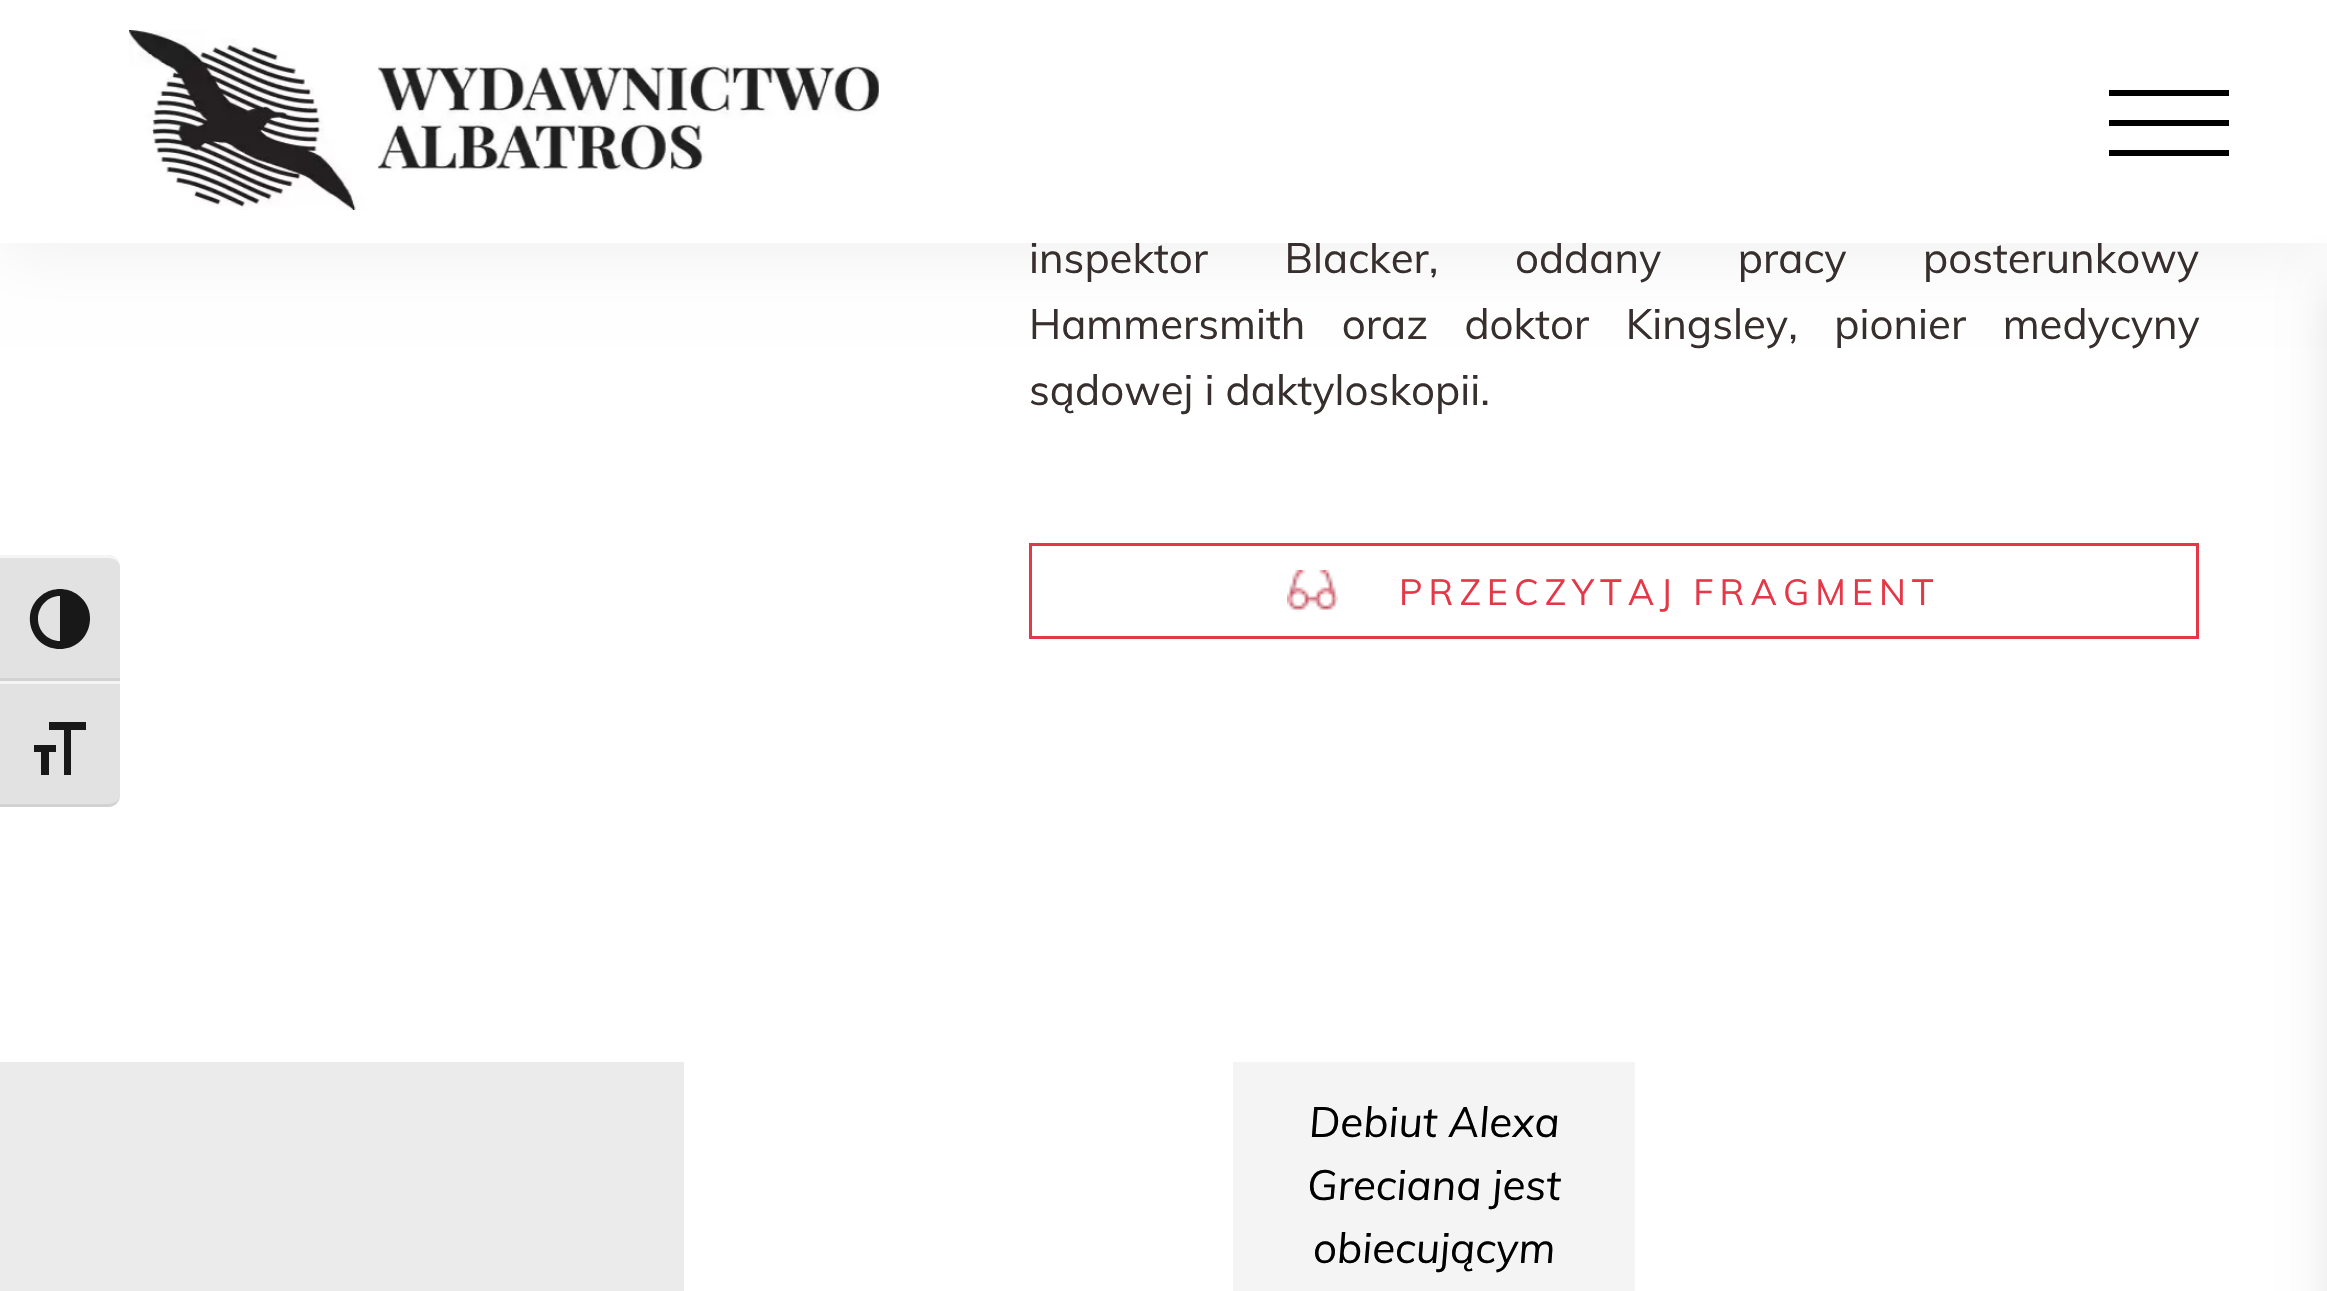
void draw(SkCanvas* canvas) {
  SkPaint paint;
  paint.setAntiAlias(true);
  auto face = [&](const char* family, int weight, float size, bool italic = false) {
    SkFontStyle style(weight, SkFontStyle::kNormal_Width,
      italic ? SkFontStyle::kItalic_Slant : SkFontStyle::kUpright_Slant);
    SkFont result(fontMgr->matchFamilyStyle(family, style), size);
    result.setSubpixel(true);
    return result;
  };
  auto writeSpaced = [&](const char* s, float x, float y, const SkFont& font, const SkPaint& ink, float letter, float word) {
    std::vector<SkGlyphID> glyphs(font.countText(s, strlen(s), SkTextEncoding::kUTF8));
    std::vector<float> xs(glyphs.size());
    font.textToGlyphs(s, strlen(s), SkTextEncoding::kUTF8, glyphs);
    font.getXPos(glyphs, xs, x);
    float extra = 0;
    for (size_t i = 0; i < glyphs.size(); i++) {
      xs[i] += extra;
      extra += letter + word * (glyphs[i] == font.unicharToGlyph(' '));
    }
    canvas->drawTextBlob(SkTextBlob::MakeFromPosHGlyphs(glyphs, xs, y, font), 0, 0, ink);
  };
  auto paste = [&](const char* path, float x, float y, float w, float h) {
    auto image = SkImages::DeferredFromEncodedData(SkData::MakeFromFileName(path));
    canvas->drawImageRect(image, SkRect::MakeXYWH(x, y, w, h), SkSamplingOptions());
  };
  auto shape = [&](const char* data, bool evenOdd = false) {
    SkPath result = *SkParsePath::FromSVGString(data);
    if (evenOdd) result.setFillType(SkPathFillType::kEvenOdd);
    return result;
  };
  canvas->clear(0xffffffff);
  paint.setColor(0x0d000000);
  paint.setMaskFilter(SkMaskFilter::MakeBlur(kNormal_SkBlurStyle, 30));
  canvas->drawRect(SkRect::MakeXYWH(0, 15, 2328, 243), paint);
  paint.setMaskFilter(nullptr);
  paint.setColor(0xffe2e2e2);
  canvas->drawPath(shape("M0 555H108C114.5 555 120 560.5 120 567V681H0Z"), paint);
  paint.setColor(0xfff5f5f5);
  canvas->drawPath(shape("M0 555V558H108C115 558 120 562 120 567C120 560 115 555 108 555Z"), paint);
  paint.setColor(0xffd2d2d2);
  canvas->drawRect(SkRect::MakeXYWH(0, 678, 120, 3), paint);
  paint.setColor(0xff181818);
  canvas->drawPath(shape("M60 589C54 589 47 591 42 595C19 612 31 649 60 649C89 649 101 612 78 595C73 591 66 589 60 589ZM38 619C38 606 48 596 60 596V641C48 641 38 631 38 619Z"), paint);
  paint.setColor(0xffe2e2e2);
  canvas->drawPath(shape("M0 681H120V795C120 801.5 114.5 807 108 807H0Z"), paint);
  paint.setColor(0xfff5f5f5);
  canvas->drawRect(SkRect::MakeXYWH(0, 681, 120, 3), paint);
  paint.setColor(0xffd2d2d2);
  canvas->drawPath(shape("M0 804V807H108C115 807 120 802 120 795C120 800 115 804 108 804Z"), paint);
  paint.setColor(0xff181818);
  canvas->drawPath(shape("M34 745H56V752H49V775H41V752H34ZM86 730H71V775H64V730H49V722H86Z"), paint);
  paint.setStroke(true);
  paint.setStrokeWidth(3);
  paint.setColor(0xffe43848);
  canvas->drawRect(SkRect::MakeXYWH(1030.5f, 544.5f, 1167, 93), paint);
  paste("img/2.png", 1287, 570, 51, 42);
  paint.setStroke(false);
  paint.setColor(0xffebebeb);
  canvas->drawRect(SkRect::MakeXYWH(0, 1062, 684, 229), paint);
  paint.setColor(0xfff4f4f4);
  canvas->drawRect(SkRect::MakeXYWH(1233, 1062, 402, 229), paint);
  auto f0 = face("Muli", 400, 42);
  paint.setColor(0xff372f2d);
  writeSpaced("inspektor Blacker, oddany pracy posterunkowy", 1029, 273, f0, paint, 0, 65.5f);
  {
    const struct { float x, y, w, h; SkColor color; } items[] = {
      {0, 0, 2327, 243, 0xffffffff},
      {2109, 150, 120, 6, 0xff000000},
      {2109, 120, 120, 6, 0xff000000},
      {2109, 90, 120, 6, 0xff000000},
    };
    for (auto [x, y, w, h, color] : items) {
      paint.setColor(color);
      canvas->drawRect(SkRect::MakeXYWH(x, y, w, h), paint);
    }
  }
  paint.setColor(0x1a000000);
  paint.setMaskFilter(SkMaskFilter::MakeBlur(kNormal_SkBlurStyle, 22.5f));
  canvas->drawRect(SkRect::MakeXYWH(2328, 285, 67, 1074), paint);
  paint.setMaskFilter(nullptr);
  paste("img/1.png", 129, 30, 750, 180);
  paint.setColor(0xff372f2d);
  writeSpaced("Hammersmith oraz doktor Kingsley, pionier medycyny", 1029, 339, f0, paint, 0, 25.5f);
  canvas->drawString("sądowej i daktyloskopii.", 1029, 405, f0, paint);
  auto f1 = face("Muli", 400, 36);
  paint.setColor(0xffe43848);
  writeSpaced("PRZECZYTAJ FRAGMENT", 1399, 605, f1, paint, 6, 0);
  auto f2 = face("Muli", 400, 42, true);
  paint.setColor(0xff000000);
  {
    const struct { const char* s; float x, y; } items[] = {
      {"Debiut Alexa", 1309, 1137},
      {"Greciana jest", 1307, 1200},
      {"obiecującym", 1313, 1263},
    };
    for (auto [s, x, y] : items) {
      canvas->drawString(s, x, y, f2, paint);
    }
  }
}
